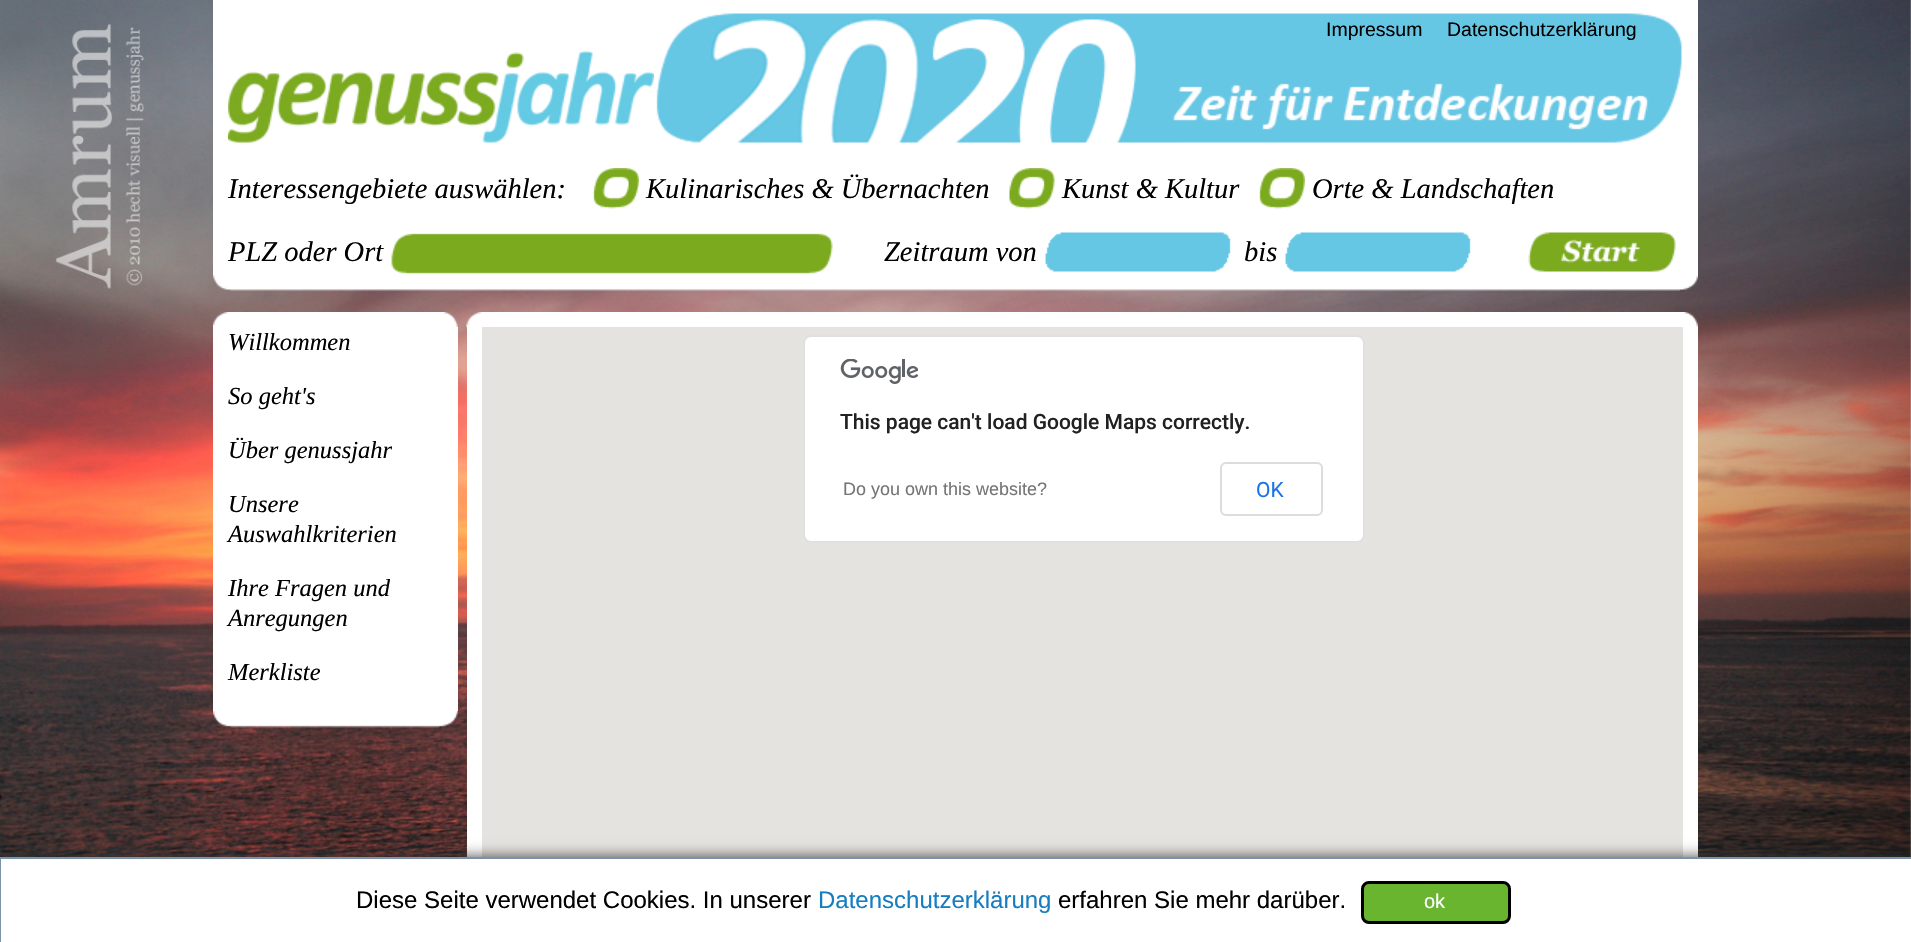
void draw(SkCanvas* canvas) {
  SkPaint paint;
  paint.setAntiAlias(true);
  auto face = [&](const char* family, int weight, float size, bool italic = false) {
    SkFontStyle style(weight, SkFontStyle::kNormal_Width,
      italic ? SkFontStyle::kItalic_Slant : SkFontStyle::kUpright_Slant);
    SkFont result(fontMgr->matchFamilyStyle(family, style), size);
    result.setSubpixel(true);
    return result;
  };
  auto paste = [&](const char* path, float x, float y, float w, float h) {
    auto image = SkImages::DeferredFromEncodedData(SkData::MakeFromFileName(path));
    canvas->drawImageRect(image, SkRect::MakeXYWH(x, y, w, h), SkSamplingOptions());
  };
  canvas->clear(0xffffffff);
  paste("img/1.png", 0, 0, 1911, 857);
  paint.setColor(0xffffffff);
  canvas->drawRect(SkRect::MakeXYWH(213, 0, 1485, 275), paint);
  paste("img/2.png", 656, 13, 1026, 130);
  paste("img/3.png", 228, 51, 426, 92);
  paste("img/4.png", 593, 168, 46, 41);
  paste("img/5.png", 1009, 168, 46, 41);
  paste("img/6.png", 1259, 168, 46, 41);
  paste("img/7.png", 391, 233, 442, 41);
  paste("img/8.png", 1045, 232, 186, 40);
  paste("img/9.png", 1285, 232, 186, 40);
  paste("img/10.png", 1528, 232, 148, 40);
  paste("img/11.png", 213, 275, 1485, 16);
  paste("img/12.png", 213, 312, 245, 15);
  canvas->drawRect(SkRect::MakeXYWH(213, 327, 245, 384), paint);
  paste("img/13.png", 213, 711, 245, 17);
  paste("img/14.png", 466, 312, 1232, 15);
  canvas->drawRect(SkRect::MakeXYWH(467, 327, 1231, 530), paint);
  paint.setColor(0xffe5e3df);
  canvas->drawRect(SkRect::MakeXYWH(482, 327, 1201, 530), paint);
  paint.setColor(0xffffffff);
  canvas->drawRoundRect(SkRect::MakeXYWH(803, 335, 562, 208), 8, 8, paint);
  paint.setStroke(true);
  paint.setStrokeWidth(2);
  paint.setColor(0x1f000000);
  canvas->drawRoundRect(SkRect::MakeXYWH(804, 336, 560, 206), 7, 7, paint);
  paste("img/15.png", 840, 359, 78, 25);
  paint.setColor(0xffdadce0);
  canvas->drawRoundRect(SkRect::MakeXYWH(1221, 463, 101, 52), 5, 5, paint);
  paint.setStroke(false);
  paint.setColor(0xff333333);
  paint.setMaskFilter(SkMaskFilter::MakeBlur(kNormal_SkBlurStyle, 7.5f));
  canvas->drawRect(SkRect::MakeXYWH(0, 858, 1911, 84), paint);
  paint.setMaskFilter(nullptr);
  paint.setColor(0xffffffff);
  canvas->drawRect(SkRect::MakeXYWH(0, 858, 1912, 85), paint);
  paint.setStroke(true);
  paint.setColor(0xff7b92a9);
  canvas->drawRect(SkRect::MakeXYWH(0, 858, 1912, 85), paint);
  paint.setStroke(false);
  paint.setColor(0xff69b530);
  canvas->drawRoundRect(SkRect::MakeXYWH(1362.5f, 882.5f, 147, 40), 6.5f, 6.5f, paint);
  paint.setStroke(true);
  paint.setStrokeWidth(3);
  paint.setColor(0xff000000);
  canvas->drawRoundRect(SkRect::MakeXYWH(1362.5f, 882.5f, 147, 40), 6.5f, 6.5f, paint);
  auto f0 = face("Liberation Sans", 400, 19.5f);
  paint.setStroke(false);
  canvas->drawString("Impressum", 1326, 36, f0, paint);
  canvas->drawString("Datenschutzerklärung", 1447, 36, f0, paint);
  auto f1 = face("Liberation Serif", 400, 28.5f, true);
  {
    const struct { const char* s; float x, y; } items[] = {
      {"Interessengebiete auswählen:", 228, 198},
      {"Kulinarisches & Übernachten", 646, 198},
      {"Kunst & Kultur", 1062, 198},
      {"Orte & Landschaften", 1312, 198},
      {"PLZ oder Ort", 228, 261},
      {"Zeitraum von", 884, 261},
      {"bis", 1244, 261},
    };
    for (auto [s, x, y] : items) {
      canvas->drawString(s, x, y, f1, paint);
    }
  }
  auto f2 = face("Liberation Serif", 400, 24.5f, true);
  {
    const struct { const char* s; float x, y; } items[] = {
      {"Willkommen", 228, 350},
      {"So geht's", 228, 404},
      {"Über genussjahr", 228, 458},
      {"Unsere", 228, 512},
      {"Auswahlkriterien", 228, 542},
      {"Ihre Fragen und", 228, 596},
      {"Anregungen", 228, 626},
      {"Merkliste", 228, 680},
    };
    for (auto [s, x, y] : items) {
      canvas->drawString(s, x, y, f2, paint);
    }
  }
  auto f3 = face("Roboto", 500, 21);
  paint.setColor(0xff212121);
  canvas->drawString("This page can't load Google Maps correctly.", 840, 429, f3, paint);
  auto f4 = face("Liberation Sans", 400, 18);
  paint.setColor(0xff757575);
  canvas->drawString("Do you own this website?", 843, 495, f4, paint);
  auto f5 = face("Roboto", 400, 21);
  paint.setColor(0xff1a73e8);
  canvas->drawString("OK", 1256, 497, f5, paint);
  auto f6 = face("Liberation Sans", 400, 24);
  paint.setColor(0xff000000);
  canvas->drawString("Diese Seite verwendet Cookies. In unserer", 356, 908, f6, paint);
  paint.setColor(0xff167dc1);
  canvas->drawString("Datenschutzerklärung", 818, 908, f6, paint);
  paint.setColor(0xff000000);
  canvas->drawString("erfahren Sie mehr darüber.", 1058, 908, f6, paint);
  auto f7 = face("Liberation Sans", 400, 20);
  paint.setColor(0xffffffff);
  canvas->drawString("ok", 1424, 908, f7, paint);
}
